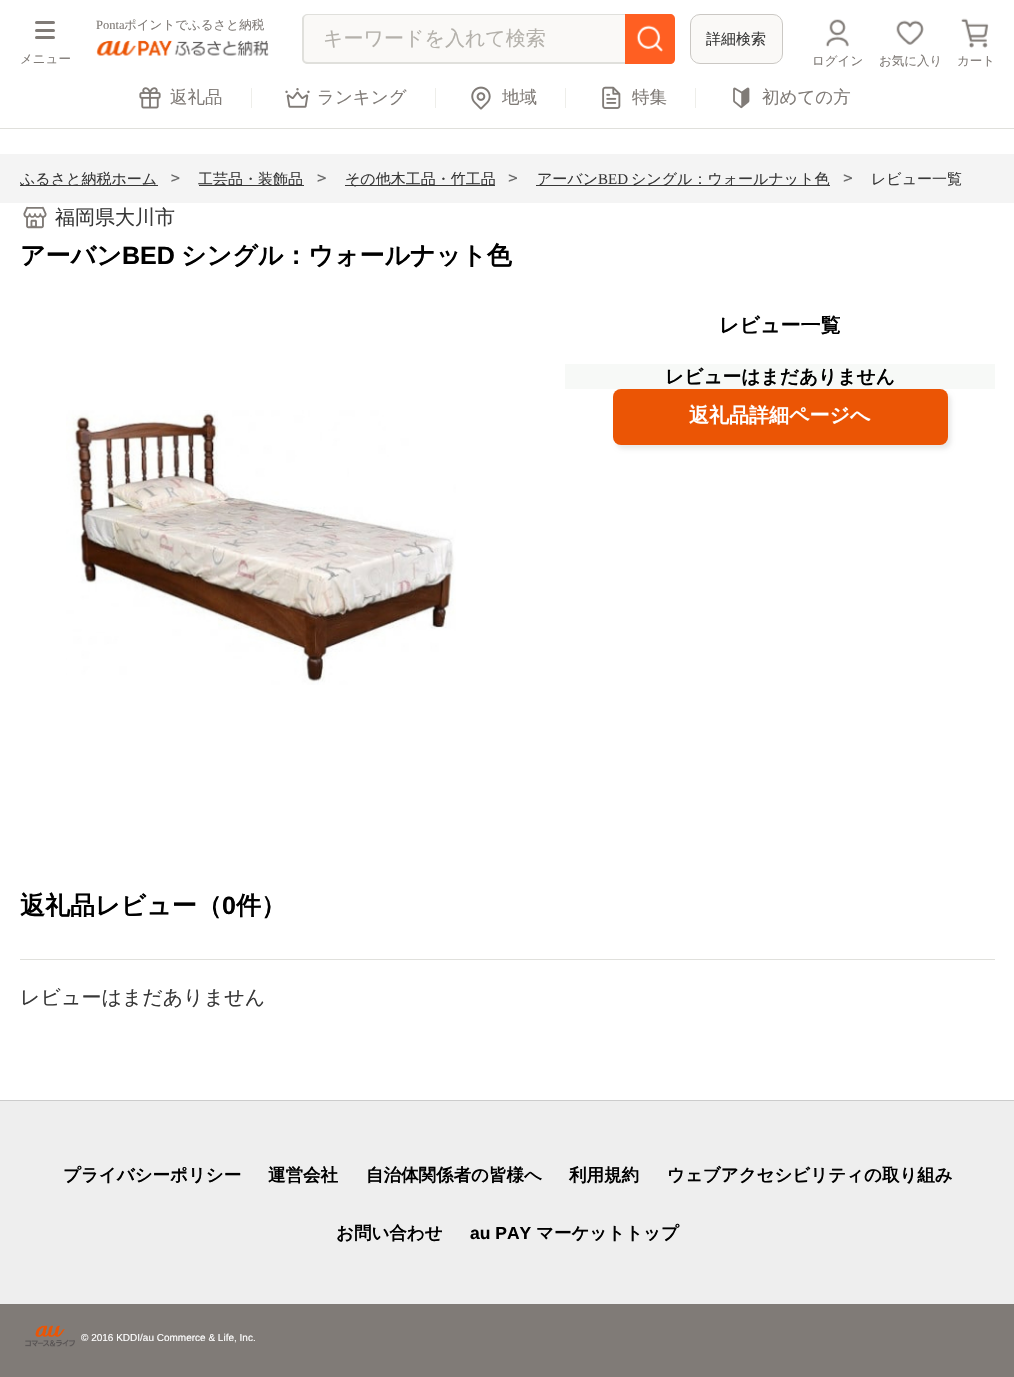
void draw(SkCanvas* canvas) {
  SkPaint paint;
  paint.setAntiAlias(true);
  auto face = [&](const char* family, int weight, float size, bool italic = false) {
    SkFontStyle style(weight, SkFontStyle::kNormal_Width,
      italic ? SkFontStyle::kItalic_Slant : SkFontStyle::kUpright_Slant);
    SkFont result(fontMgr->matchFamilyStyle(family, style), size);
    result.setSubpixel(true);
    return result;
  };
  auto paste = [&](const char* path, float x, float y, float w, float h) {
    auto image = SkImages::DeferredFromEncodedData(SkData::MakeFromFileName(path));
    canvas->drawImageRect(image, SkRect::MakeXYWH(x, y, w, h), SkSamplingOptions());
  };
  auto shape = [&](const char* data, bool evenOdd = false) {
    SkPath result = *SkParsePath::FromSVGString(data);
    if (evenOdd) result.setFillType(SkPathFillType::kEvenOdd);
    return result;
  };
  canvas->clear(0xffffffff);
  paint.setColor(0xffe0e0dc);
  canvas->drawRect(SkRect::MakeXYWH(0, 128, 1014, 1), paint);
  paste("img/1.png", 96, 40, 173, 16);
  paint.setColor(0xfffaf9f7);
  canvas->drawPath(shape("M308 14H625V64H308C305 64 303 62 303 59V19C303 16 305 14 308 14Z"), paint);
  paint.setColor(0xffe0e0dc);
  canvas->drawPath(shape("M308 14H625V64H308C305 64 302 62 302 59V19C302 16 305 14 308 14ZM308 15H625V62H308C305 62 304 61 304 59V19C304 17 305 15 308 15Z", true), paint);
  paint.setColor(0xffff5f22);
  canvas->drawPath(shape("M625 14H670C673 14 675 16 675 19V59C675 62 673 64 670 64H625Z"), paint);
  paste("img/2.png", 636, 25, 27, 27);
  paint.setColor(0xfffaf9f7);
  canvas->drawRoundRect(SkRect::MakeXYWH(690.5f, 14.5f, 92, 49), 9.5f, 9.5f, paint);
  paint.setStroke(true);
  paint.setStrokeWidth(1);
  paint.setColor(0xffcbc8c4);
  canvas->drawRoundRect(SkRect::MakeXYWH(690.5f, 14.5f, 92, 49), 9.5f, 9.5f, paint);
  paint.setStroke(false);
  paint.setColor(0xff807b77);
  canvas->drawRoundRect(SkRect::MakeXYWH(35, 21, 20, 3), 1.5f, 1.5f, paint);
  canvas->drawRoundRect(SkRect::MakeXYWH(35, 29, 20, 3), 1.5f, 1.5f, paint);
  canvas->drawRoundRect(SkRect::MakeXYWH(35, 36, 20, 3), 1.5f, 1.5f, paint);
  paste("img/3.png", 825, 19, 24, 28);
  paste("img/4.png", 896, 20, 28, 25);
  paste("img/5.png", 961, 18, 28, 30);
  paste("img/6.png", 139, 87, 22, 22);
  paint.setColor(0xffeeeeea);
  canvas->drawRect(SkRect::MakeXYWH(251, 88, 1, 20), paint);
  paste("img/7.png", 285, 88, 25, 20);
  canvas->drawRect(SkRect::MakeXYWH(435, 88, 1, 20), paint);
  paste("img/8.png", 471, 86, 20, 24);
  canvas->drawRect(SkRect::MakeXYWH(565, 88, 1, 20), paint);
  paste("img/9.png", 602, 86, 19, 23);
  canvas->drawRect(SkRect::MakeXYWH(695, 88, 1, 20), paint);
  paste("img/10.png", 733, 87, 17, 22);
  paint.setColor(0xfff4f4f4);
  canvas->drawRect(SkRect::MakeXYWH(0, 154, 1014, 49), paint);
  paint.setColor(0xff383838);
  canvas->drawRect(SkRect::MakeXYWH(20, 185, 138, 1), paint);
  paste("img/11.png", 171, 174, 9, 8);
  canvas->drawRect(SkRect::MakeXYWH(199, 185, 105, 1), paint);
  paste("img/12.png", 317, 174, 9, 8);
  canvas->drawRect(SkRect::MakeXYWH(345, 185, 150, 1), paint);
  paste("img/13.png", 508, 174, 9, 8);
  canvas->drawRect(SkRect::MakeXYWH(536, 185, 294, 1), paint);
  paste("img/14.png", 843, 174, 9, 8);
  paste("img/15.png", 23, 206, 24, 23);
  paint.setColor(0xfff7f9f7);
  canvas->drawRect(SkRect::MakeXYWH(565, 364, 430, 25), paint);
  paint.setColor(0xffe9e9e9);
  paint.setMaskFilter(SkMaskFilter::MakeBlur(kNormal_SkBlurStyle, 2));
  canvas->drawRoundRect(SkRect::MakeXYWH(616, 393, 335, 56), 8, 8, paint);
  paint.setMaskFilter(nullptr);
  paint.setColor(0xffeb5505);
  canvas->drawRoundRect(SkRect::MakeXYWH(613, 389, 335, 56), 8, 8, paint);
  paste("img/16.png", 66, 410, 390, 275);
  {
    const struct { float x, y, w, h; SkColor color; } items[] = {
      {20, 959, 975, 1, 0xffe0e0dc},
      {0, 1101, 1014, 203, 0xffeeeeee},
      {0, 1100, 1014, 1, 0xffcccccc},
      {0, 1304, 1014, 73, 0xff807b77},
    };
    for (auto [x, y, w, h, color] : items) {
      paint.setColor(color);
      canvas->drawRect(SkRect::MakeXYWH(x, y, w, h), paint);
    }
  }
  paste("img/17.png", 25, 1325, 50, 22);
  auto f0 = face("Liberation Serif", 400, 12.5f);
  canvas->drawString("Ponta", 96, 29, f0, paint);
  auto f1 = face("WenQuanYi Zen Hei", 500, 12.5f);
  canvas->drawString("ポイントでふるさと納税", 124, 29, f1, paint);
  auto f2 = face("WenQuanYi Zen Hei", 500, 20);
  paint.setColor(0xffb4b1ab);
  canvas->drawString("キーワードを入れて検索", 323, 45, f2, paint);
  auto f3 = face("WenQuanYi Zen Hei", 500, 15);
  paint.setColor(0xff383838);
  canvas->drawString("詳細検索", 706, 44, f3, paint);
  paint.setColor(0xff807b77);
  {
    const struct { const char* s; float x, y; } items[] = {
      {"メニュー", 20, 63},
      {"ログイン", 812, 65},
      {"お気に入り", 879, 65},
      {"カート", 957, 65},
    };
    for (auto [s, x, y] : items) {
      canvas->drawString(s, x, y, f1, paint);
    }
  }
  auto f4 = face("WenQuanYi Zen Hei", 500, 17.5f);
  {
    const struct { const char* s; float x, y; } items[] = {
      {"返礼品", 170, 103},
      {"ランキング", 317, 103},
      {"地域", 502, 103},
      {"特集", 632, 103},
      {"初めての方", 762, 103},
    };
    for (auto [s, x, y] : items) {
      canvas->drawString(s, x, y, f4, paint);
    }
  }
  paint.setColor(0xff383838);
  {
    const struct { const char* s; float x, y; } items[] = {
      {"ふるさと納税ホーム", 20, 184},
      {"工芸品・装飾品", 198, 184},
      {"その他木工品・竹工品", 345, 184},
      {"アーバン", 537, 184},
    };
    for (auto [s, x, y] : items) {
      canvas->drawString(s, x, y, f3, paint);
    }
  }
  auto f5 = face("Liberation Serif", 400, 15);
  canvas->drawString("BED", 598, 184, f5, paint);
  canvas->drawString("シングル：ウォールナット色", 631, 184, f3, paint);
  canvas->drawString("レビュー一覧", 871, 184, f3, paint);
  canvas->drawString("福岡県大川市", 55, 224, f2, paint);
  auto f6 = face("WenQuanYi Zen Hei", 700, 25);
  paint.setColor(0xff000000);
  canvas->drawString("アーバン", 20, 264, f6, paint);
  auto f7 = face("Liberation Sans", 700, 25);
  canvas->drawString("BED", 122, 264, f7, paint);
  canvas->drawString("シングル：ウォールナット色", 181, 264, f6, paint);
  auto f8 = face("WenQuanYi Zen Hei", 700, 20);
  canvas->drawString("レビュー一覧", 719, 332, f8, paint);
  auto f9 = face("WenQuanYi Zen Hei", 700, 18.75f);
  canvas->drawString("レビューはまだありません", 665, 383, f9, paint);
  paint.setColor(0xffffffff);
  canvas->drawString("返礼品詳細ページへ", 689, 422, f8, paint);
  paint.setColor(0xff000000);
  canvas->drawString("返礼品レビュー（", 20, 914, f6, paint);
  canvas->drawString("0", 222, 914, f7, paint);
  canvas->drawString("件）", 236, 914, f6, paint);
  paint.setColor(0xff383838);
  canvas->drawString("レビューはまだありません", 20, 1004, f2, paint);
  auto f10 = face("WenQuanYi Zen Hei", 700, 17.5f);
  paint.setColor(0xff000000);
  {
    const struct { const char* s; float x, y; } items[] = {
      {"プライバシーポリシー", 63, 1181},
      {"運営会社", 268, 1181},
      {"自治体関係者の皆様へ", 366, 1181},
      {"利用規約", 569, 1181},
      {"ウェブアクセシビリティの取り組み", 667, 1181},
      {"お問い合わせ", 336, 1239},
    };
    for (auto [s, x, y] : items) {
      canvas->drawString(s, x, y, f10, paint);
    }
  }
  auto f11 = face("Liberation Sans", 700, 17.5f);
  canvas->drawString("au PAY", 470, 1239, f11, paint);
  canvas->drawString("マーケットトップ", 536, 1239, f10, paint);
  auto f12 = face("Liberation Sans", 400, 10);
  paint.setColor(0xffffffff);
  canvas->drawString("© 2016 KDDI/au Commerce & Life, Inc.", 81, 1341, f12, paint);
}
